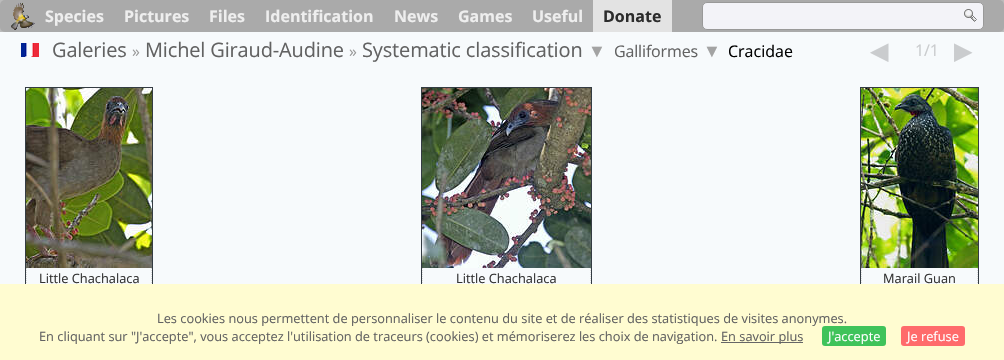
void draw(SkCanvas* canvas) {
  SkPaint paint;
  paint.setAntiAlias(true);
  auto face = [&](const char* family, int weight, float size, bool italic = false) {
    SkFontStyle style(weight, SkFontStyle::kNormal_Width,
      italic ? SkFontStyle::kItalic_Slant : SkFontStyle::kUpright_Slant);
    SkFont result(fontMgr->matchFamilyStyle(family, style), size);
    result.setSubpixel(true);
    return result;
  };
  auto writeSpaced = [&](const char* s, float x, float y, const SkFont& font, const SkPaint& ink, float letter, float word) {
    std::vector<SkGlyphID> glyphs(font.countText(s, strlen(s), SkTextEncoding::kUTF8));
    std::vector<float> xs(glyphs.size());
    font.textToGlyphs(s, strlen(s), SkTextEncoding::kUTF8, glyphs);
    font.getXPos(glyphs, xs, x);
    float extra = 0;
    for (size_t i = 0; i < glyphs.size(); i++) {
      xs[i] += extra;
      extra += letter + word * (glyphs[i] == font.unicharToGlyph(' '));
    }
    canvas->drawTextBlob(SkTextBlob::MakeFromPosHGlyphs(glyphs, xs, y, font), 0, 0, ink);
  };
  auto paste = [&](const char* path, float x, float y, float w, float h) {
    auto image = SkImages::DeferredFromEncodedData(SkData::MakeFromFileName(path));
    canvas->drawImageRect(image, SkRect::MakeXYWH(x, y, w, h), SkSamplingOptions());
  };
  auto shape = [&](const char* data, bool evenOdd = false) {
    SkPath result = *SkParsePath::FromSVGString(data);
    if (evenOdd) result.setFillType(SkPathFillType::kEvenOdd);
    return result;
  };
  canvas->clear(0xffffffff);
  {
    const SkColor colors[] = {0xffbbbbbb, 0xffbbbbbb, 0xffdddddd, 0xffffffff, 0xffffffff};
    const float stops[] = {0, 0.3f, 0.55f, 0.9f, 1};
    const SkPoint ends[] = {{502, 0}, {502, 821}};
    paint.setShader(SkGradientShader::MakeLinear(ends, colors, stops, 5, SkTileMode::kClamp));
    paint.setAlpha(255);
  }
  canvas->drawRect(SkRect::MakeXYWH(0, 0, 1004, 32), paint);
  paint.setShader(nullptr);
  paint.setColor(0xffaaaaaa);
  canvas->drawRoundRect(SkRect::MakeXYWH(0, 0, 1004, 32), 5, 5, paint);
  paste("img/1.png", 11, 2, 24, 28);
  paint.setColor(0xffe3e3e3);
  canvas->drawRect(SkRect::MakeXYWH(593, 0, 79, 32), paint);
  paint.setColor(0xfff3f3f8);
  canvas->drawRoundRect(SkRect::MakeXYWH(702.5f, 2.5f, 281, 27), 4.5f, 4.5f, paint);
  paint.setStroke(true);
  paint.setStrokeWidth(1);
  paint.setColor(0xff999999);
  canvas->drawRoundRect(SkRect::MakeXYWH(702.5f, 2.5f, 281, 27), 4.5f, 4.5f, paint);
  paste("img/2.png", 964, 9, 13, 13);
  paint.setStroke(false);
  paint.setColor(0xfff7fafc);
  canvas->drawRect(SkRect::MakeXYWH(0, 32, 1004, 252), paint);
  paste("img/3.png", 21, 43, 18, 14);
  paint.setStroke(true);
  paint.setColor(0xff343c43);
  canvas->drawRect(SkRect::MakeXYWH(25.5f, 87.5f, 127, 204), paint);
  paste("img/4.png", 26, 88, 126, 180);
  paint.setColor(0xffdadada);
  paint.setPathEffect(SkDashPathEffect::Make({{1, 1}}, 0));
  canvas->drawPath(shape("M151.5 268V291"), paint);
  paint.setPathEffect(nullptr);
  paint.setPathEffect(SkDashPathEffect::Make({{1, 1}}, 0));
  canvas->drawPath(shape("M26.5 268V291"), paint);
  paint.setPathEffect(nullptr);
  paint.setColor(0xff343c43);
  canvas->drawRect(SkRect::MakeXYWH(421.5f, 87.5f, 170, 204), paint);
  paste("img/5.png", 422, 88, 169, 180);
  paint.setColor(0xffdadada);
  paint.setPathEffect(SkDashPathEffect::Make({{1, 1}}, 0));
  canvas->drawPath(shape("M590.5 268V291"), paint);
  paint.setPathEffect(nullptr);
  paint.setPathEffect(SkDashPathEffect::Make({{1, 1}}, 0));
  canvas->drawPath(shape("M422.5 268V291"), paint);
  paint.setPathEffect(nullptr);
  paint.setColor(0xff343c43);
  canvas->drawRect(SkRect::MakeXYWH(860.5f, 87.5f, 118, 204), paint);
  paste("img/6.png", 861, 88, 117, 180);
  paint.setColor(0xffdadada);
  paint.setPathEffect(SkDashPathEffect::Make({{1, 1}}, 0));
  canvas->drawPath(shape("M977.5 268V291"), paint);
  paint.setPathEffect(nullptr);
  paint.setPathEffect(SkDashPathEffect::Make({{1, 1}}, 0));
  canvas->drawPath(shape("M861.5 268V291"), paint);
  paint.setPathEffect(nullptr);
  paint.setStroke(false);
  paint.setColor(0xfffffcd1);
  canvas->drawRect(SkRect::MakeXYWH(0, 284, 1004, 76), paint);
  paint.setColor(0xff666666);
  canvas->drawRect(SkRect::MakeXYWH(721, 342, 82, 1), paint);
  paint.setColor(0xffff6b6b);
  canvas->drawRoundRect(SkRect::MakeXYWH(901, 326, 64, 20), 3, 3, paint);
  auto f0 = face("Open Sans", 700, 16);
  paint.setColor(0xffeeeeee);
  {
    const struct { const char* s; float x, y; } items[] = {
      {"Species", 45, 22},
      {"Pictures", 124, 22},
      {"Files", 209, 22},
      {"Identification", 265, 22},
      {"News", 394, 22},
      {"Games", 458, 22},
      {"Useful", 532, 22},
    };
    for (auto [s, x, y] : items) {
      canvas->drawString(s, x, y, f0, paint);
    }
  }
  paint.setColor(0xff2c2c2c);
  canvas->drawString("Donate", 603, 22, f0, paint);
  auto f1 = face("Open Sans", 400, 20);
  paint.setColor(0xff626262);
  writeSpaced("Galeries", 52, 57, f1, paint, -0.15f, 0);
  auto f2 = face("Open Sans", 400, 16);
  paint.setColor(0xff999999);
  canvas->drawString("»", 132, 57, f2, paint);
  paint.setColor(0xff626262);
  writeSpaced("Michel Giraud-Audine", 145, 57, f1, paint, -0.15f, 0);
  paint.setColor(0xff999999);
  canvas->drawString("»", 349, 57, f2, paint);
  paint.setColor(0xff626262);
  writeSpaced("Systematic classification", 362, 57, f1, paint, -0.15f, 0);
  auto f3 = face("Liberation Sans", 400, 18);
  paint.setColor(0xffa3a3a3);
  canvas->drawString("▼", 588, 57, f3, paint);
  paint.setColor(0xff626262);
  writeSpaced("Galliformes", 614, 57, f2, paint, -0.15f, 0);
  paint.setColor(0xffa3a3a3);
  canvas->drawString("▼", 703, 57, f3, paint);
  paint.setColor(0xff000000);
  canvas->drawString("Cracidae", 728, 57, f2, paint);
  auto f4 = face("DejaVu Sans", 400, 24);
  paint.setColor(0xffcaccce);
  canvas->drawString("◀", 870, 59, f4, paint);
  writeSpaced("1/1", 915, 56, f2, paint, -0.15f, 0);
  canvas->drawString("▶", 954, 59, f4, paint);
  auto f5 = face("Open Sans", 400, 12.8f);
  paint.setColor(0xff333333);
  {
    const struct { const char* s; float x, y; } items[] = {
      {"Little Chachalaca", 39, 283},
      {"Little Chachalaca", 456, 283},
      {"Marail Guan", 883, 283},
    };
    for (auto [s, x, y] : items) {
      canvas->drawString(s, x, y, f5, paint);
    }
  }
  paint.setColor(0xff626262);
  {
    const struct { const char* s; float x, y; } items[] = {
      {"Les cookies nous permettent de personnaliser le contenu du site et de réaliser des statistiques de visites anonymes.", 157, 323},
      {"En cliquant sur \"J'accepte\", vous acceptez l'utilisation de traceurs (cookies) et mémoriserez les choix de navigation.", 39, 341},
      {"En savoir plus", 721, 341},
    };
    for (auto [s, x, y] : items) {
      canvas->drawString(s, x, y, f5, paint);
    }
  }
  paint.setColor(0xff3fc35a);
  canvas->drawRoundRect(SkRect::MakeXYWH(822, 326, 64, 20), 3, 3, paint);
  paint.setColor(0xffffffff);
  canvas->drawString("J'accepte", 828, 341, f5, paint);
  canvas->drawString("Je refuse", 907, 341, f5, paint);
}
